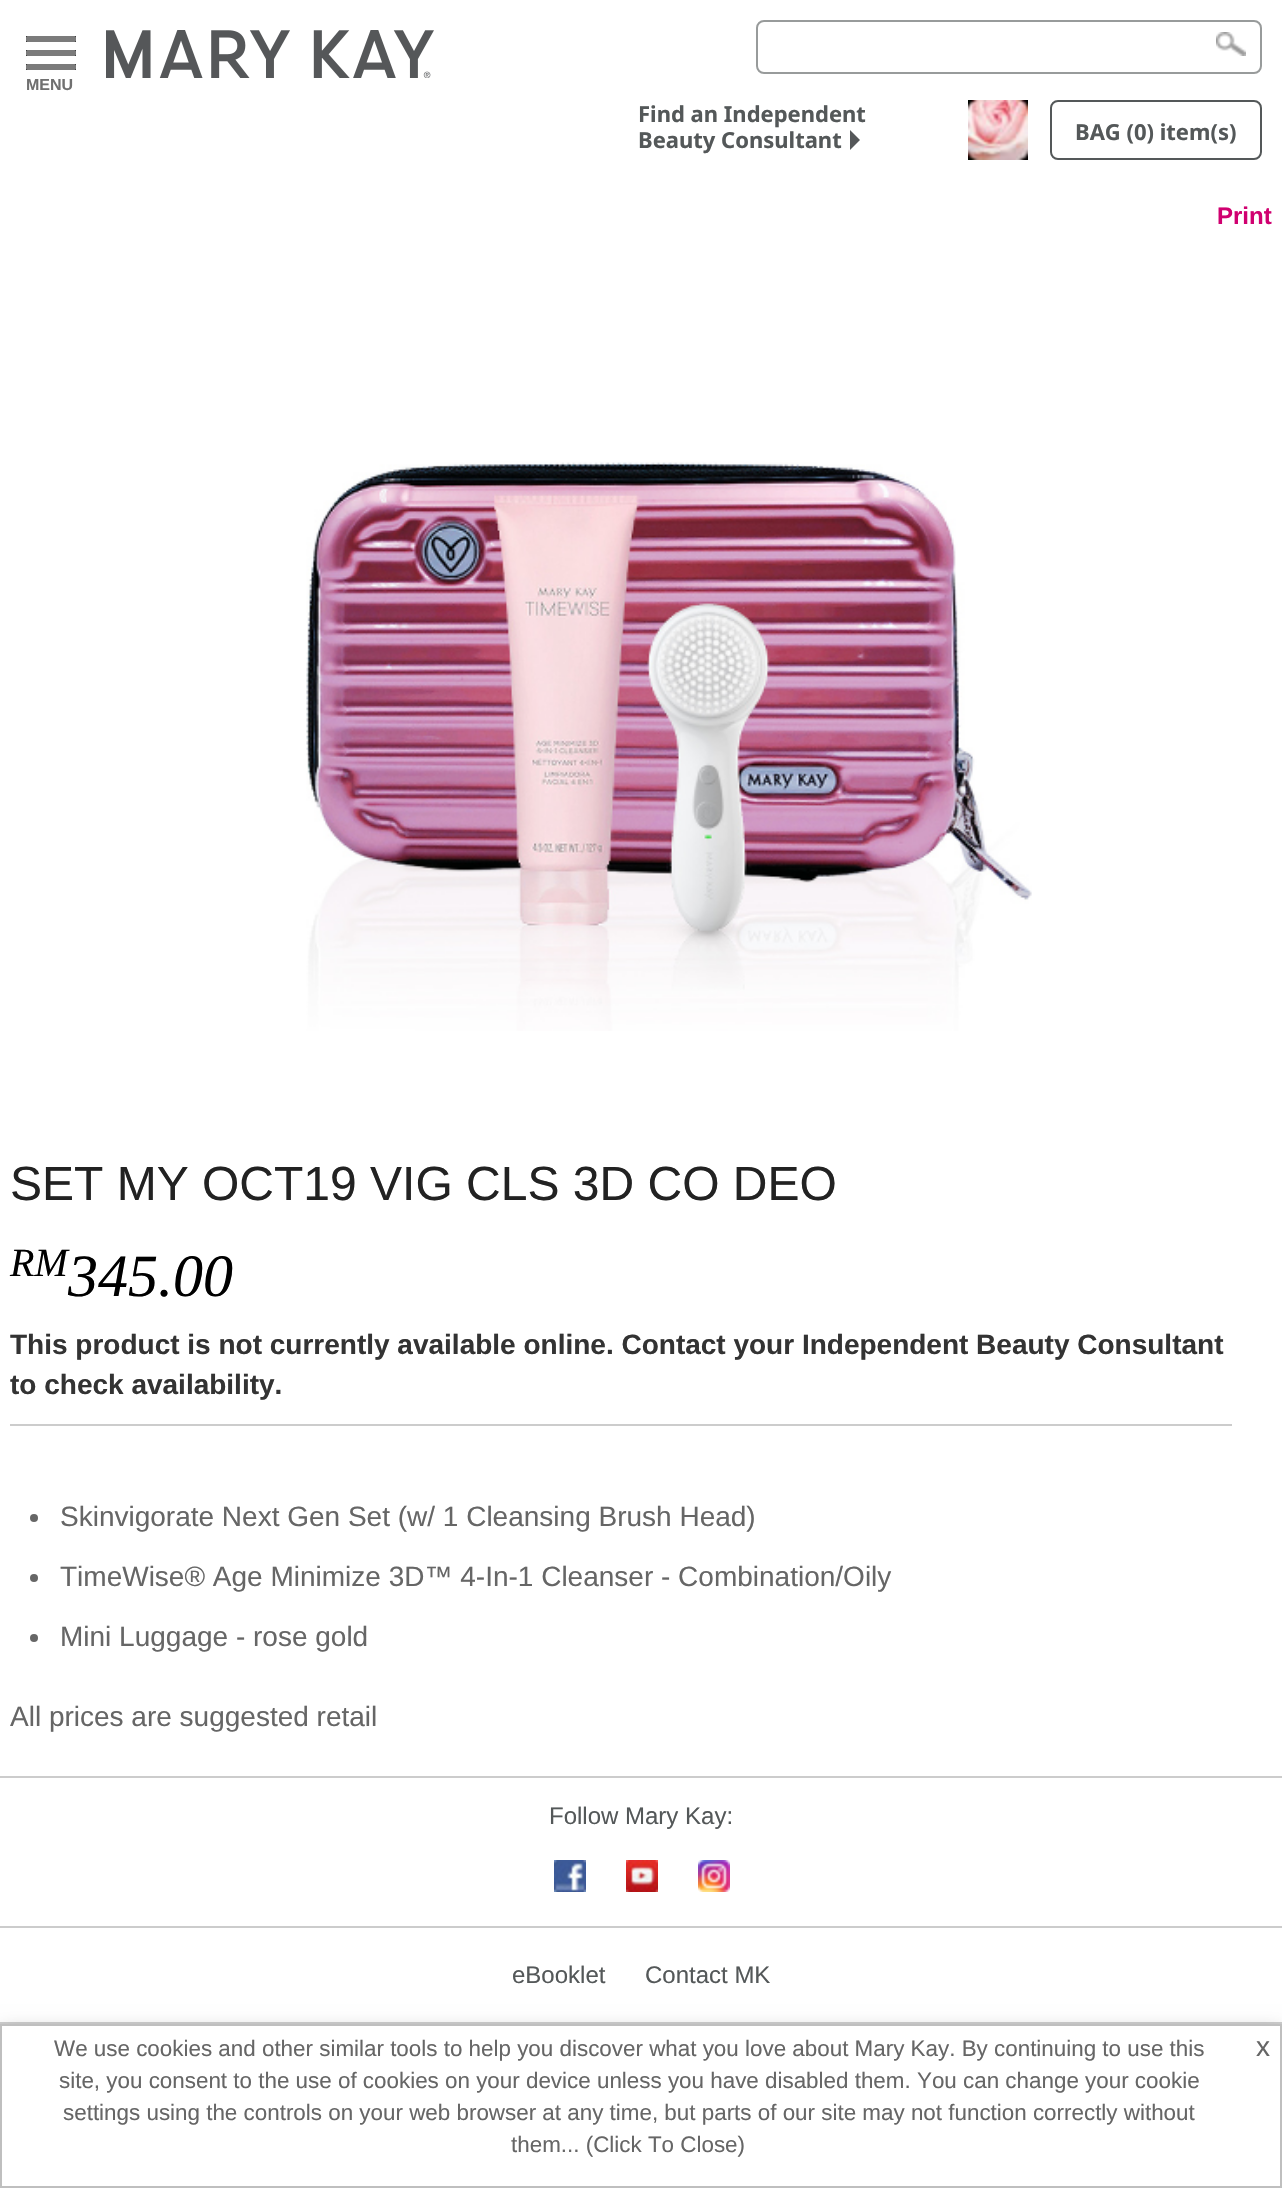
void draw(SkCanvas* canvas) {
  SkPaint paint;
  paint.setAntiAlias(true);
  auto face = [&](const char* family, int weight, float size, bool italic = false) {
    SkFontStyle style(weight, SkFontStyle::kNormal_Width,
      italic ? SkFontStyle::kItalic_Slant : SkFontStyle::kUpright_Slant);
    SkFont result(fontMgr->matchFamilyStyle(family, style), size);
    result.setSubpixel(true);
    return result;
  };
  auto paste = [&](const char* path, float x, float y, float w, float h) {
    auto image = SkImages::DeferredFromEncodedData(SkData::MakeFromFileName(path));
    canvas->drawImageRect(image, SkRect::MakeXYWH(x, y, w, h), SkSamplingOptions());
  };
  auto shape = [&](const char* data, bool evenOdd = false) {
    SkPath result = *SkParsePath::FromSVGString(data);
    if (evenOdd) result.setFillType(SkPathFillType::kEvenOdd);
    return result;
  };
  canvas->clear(0xffffffff);
  paste("img/1.png", 1216, 32, 30, 24);
  paint.setColor(0x99ffffff);
  canvas->drawRoundRect(SkRect::MakeXYWH(757, 21, 504, 52), 7, 7, paint);
  paint.setStroke(true);
  paint.setStrokeWidth(2);
  paint.setColor(0xff989b9b);
  canvas->drawRoundRect(SkRect::MakeXYWH(757, 21, 504, 52), 7, 7, paint);
  paste("img/2.png", 106, 30, 328, 48);
  paste("img/3.png", 26, 36, 50, 34);
  paint.setStroke(false);
  paint.setColor(0xff555759);
  canvas->drawPath(shape("M850 150V130L860 140Z"), paint);
  paste("img/4.png", 968, 100, 60, 60);
  paint.setStroke(true);
  paint.setColor(0xff545859);
  canvas->drawRoundRect(SkRect::MakeXYWH(1051, 101, 210, 58), 7, 7, paint);
  paste("img/5.png", 306, 461, 726, 570);
  paint.setStroke(false);
  paint.setColor(0xffcccccc);
  canvas->drawRect(SkRect::MakeXYWH(10, 1424, 1222, 2), paint);
  paint.setColor(0xff666666);
  canvas->drawCircle(34, 1518, 4, paint);
  canvas->drawCircle(34, 1578, 4, paint);
  canvas->drawCircle(34, 1638, 4, paint);
  paint.setColor(0xffcccccc);
  canvas->drawRect(SkRect::MakeXYWH(0, 1776, 1282, 2), paint);
  canvas->drawRect(SkRect::MakeXYWH(0, 2022, 1282, 2), paint);
  paste("img/6.png", 554, 1860, 32, 32);
  paste("img/7.png", 626, 1860, 32, 32);
  paste("img/8.png", 698, 1860, 32, 32);
  canvas->drawRect(SkRect::MakeXYWH(0, 1926, 1282, 2), paint);
  paint.setColor(0xff999999);
  paint.setMaskFilter(SkMaskFilter::MakeBlur(kNormal_SkBlurStyle, 10));
  canvas->drawRect(SkRect::MakeXYWH(0, 2034, 1282, 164), paint);
  paint.setMaskFilter(nullptr);
  paint.setColor(0xffffffff);
  canvas->drawRect(SkRect::MakeXYWH(1, 2025, 1280, 162), paint);
  paint.setStroke(true);
  paint.setColor(0xffbfbfbf);
  canvas->drawRect(SkRect::MakeXYWH(1, 2025, 1280, 162), paint);
  auto f0 = face("Liberation Sans", 700, 16);
  paint.setStroke(false);
  paint.setColor(0xff707070);
  canvas->drawString("MENU", 26, 90, f0, paint);
  auto f1 = face("Noto Sans", 700, 22);
  paint.setColor(0xff545859);
  {
    const struct { const char* s; float x, y; } items[] = {
      {"Find an Independent", 638, 122},
      {"Beauty Consultant", 638, 148},
      {"BAG (0) item(s)", 1075, 140},
    };
    for (auto [s, x, y] : items) {
      canvas->drawString(s, x, y, f1, paint);
    }
  }
  auto f2 = face("Liberation Sans", 700, 24);
  paint.setColor(0xffd00070);
  canvas->drawString("Print", 1217, 224, f2, paint);
  auto f3 = face("Liberation Sans", 400, 48);
  paint.setColor(0xff222222);
  canvas->drawString("SET MY OCT19 VIG CLS 3D CO DEO", 10, 1200, f3, paint);
  auto f4 = face("Liberation Serif", 400, 60, true);
  paint.setColor(0xff000000);
  canvas->drawString("345.00", 68, 1296, f4, paint);
  auto f5 = face("Liberation Serif", 400, 40, true);
  canvas->drawString("RM", 10, 1276, f5, paint);
  auto f6 = face("Liberation Sans", 700, 28);
  paint.setColor(0xff333333);
  canvas->drawString("This product is not currently available online. Contact your Independent Beauty Consultant", 10, 1354, f6, paint);
  canvas->drawString("to check availability.", 10, 1394, f6, paint);
  auto f7 = face("Liberation Sans", 400, 28);
  paint.setColor(0xff666666);
  {
    const struct { const char* s; float x, y; } items[] = {
      {"Skinvigorate Next Gen Set (w/ 1 Cleansing Brush Head)", 60, 1526},
      {"TimeWise® Age Minimize 3D™ 4-In-1 Cleanser - Combination/Oily", 60, 1586},
      {"Mini Luggage - rose gold", 60, 1646},
      {"All prices are suggested retail", 10, 1726},
    };
    for (auto [s, x, y] : items) {
      canvas->drawString(s, x, y, f7, paint);
    }
  }
  auto f8 = face("Liberation Sans", 400, 24);
  paint.setColor(0xff545859);
  {
    const struct { const char* s; float x, y; } items[] = {
      {"Follow Mary Kay:", 549, 1824},
      {"eBooklet", 512, 1983},
      {"Contact MK", 645, 1983},
    };
    for (auto [s, x, y] : items) {
      canvas->drawString(s, x, y, f8, paint);
    }
  }
  auto f9 = face("Liberation Sans", 400, 22.4f);
  paint.setColor(0xff666666);
  {
    const struct { const char* s; float x, y; } items[] = {
      {"We use cookies and other similar tools to help you discover what you love about Mary Kay. By continuing to use this", 54, 2056},
      {"site, you consent to the use of cookies on your device unless you have disabled them. You can change your cookie", 59, 2088},
      {"settings using the controls on your web browser at any time, but parts of our site may not function correctly without", 63, 2120},
      {"them... (Click To Close)", 511, 2152},
    };
    for (auto [s, x, y] : items) {
      canvas->drawString(s, x, y, f9, paint);
    }
  }
  canvas->drawString("x", 1256, 2056, f7, paint);
}
